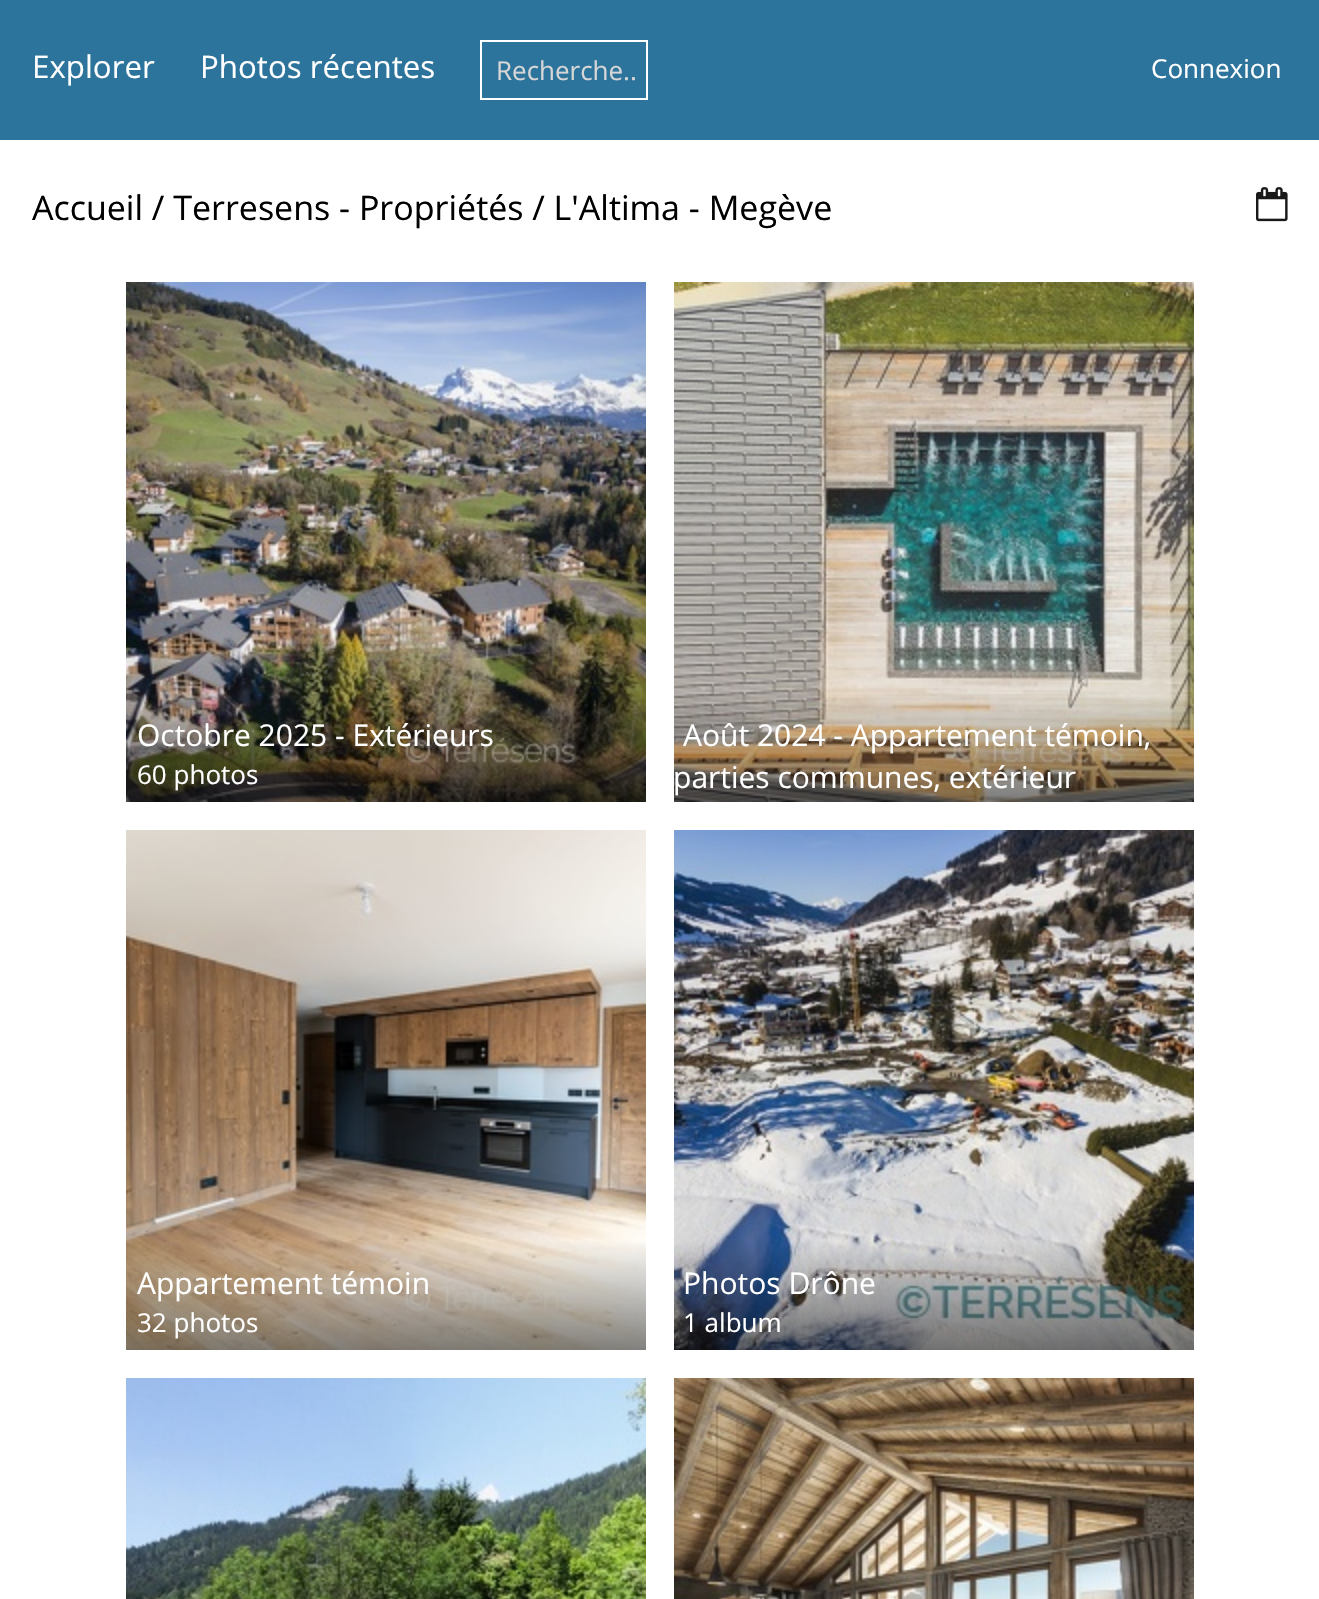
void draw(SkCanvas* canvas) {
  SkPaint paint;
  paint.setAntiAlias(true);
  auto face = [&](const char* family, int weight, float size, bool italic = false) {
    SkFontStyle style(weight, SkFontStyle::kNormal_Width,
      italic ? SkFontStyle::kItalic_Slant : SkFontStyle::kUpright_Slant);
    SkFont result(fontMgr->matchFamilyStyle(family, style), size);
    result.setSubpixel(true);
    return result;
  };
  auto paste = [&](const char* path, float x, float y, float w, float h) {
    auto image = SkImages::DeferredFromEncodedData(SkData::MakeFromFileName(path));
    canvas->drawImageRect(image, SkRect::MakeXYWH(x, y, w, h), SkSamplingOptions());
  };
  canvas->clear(0xffffffff);
  paint.setColor(0xff2d749c);
  canvas->drawRect(SkRect::MakeXYWH(0, 0, 1319, 140), paint);
  paint.setStroke(true);
  paint.setStrokeWidth(2);
  paint.setColor(0xffffffff);
  canvas->drawRect(SkRect::MakeXYWH(481, 41, 166, 58), paint);
  paste("img/1.png", 1256, 187, 32, 35);
  paste("img/2.png", 126, 282, 520, 520);
  paste("img/3.png", 674, 282, 520, 520);
  paste("img/4.png", 126, 830, 520, 520);
  paste("img/5.png", 674, 830, 520, 520);
  paste("img/6.png", 126, 1378, 520, 221);
  paste("img/7.png", 674, 1378, 520, 221);
  auto f0 = face("Open Sans", 400, 31.25f);
  paint.setStroke(false);
  canvas->drawString("Explorer", 32, 78, f0, paint);
  canvas->drawString("Photos récentes", 200, 78, f0, paint);
  auto f1 = face("Open Sans", 400, 26);
  paint.setColor(0xffd6d6d6);
  canvas->drawString("Recherche..", 496, 80, f1, paint);
  paint.setColor(0xffffffff);
  canvas->drawString("Connexion", 1151, 78, f1, paint);
  auto f2 = face("Open Sans", 400, 34);
  paint.setColor(0xff000000);
  canvas->drawString("Accueil / Terresens - Propriétés / L'Altima - Megève", 32, 220, f2, paint);
  auto f3 = face("Open Sans", 400, 30);
  paint.setColor(0xffffffff);
  canvas->drawString("Octobre 2025 - Extérieurs", 137, 746, f3, paint);
  canvas->drawString("60 photos", 137, 784, f1, paint);
  {
    const struct { const char* s; float x, y; } items[] = {
      {"Août 2024 - Appartement témoin,", 683, 746},
      {"parties communes, extérieur", 673, 788},
      {"Appartement témoin", 137, 1294},
    };
    for (auto [s, x, y] : items) {
      canvas->drawString(s, x, y, f3, paint);
    }
  }
  canvas->drawString("32 photos", 137, 1332, f1, paint);
  canvas->drawString("Photos Drône", 683, 1294, f3, paint);
  canvas->drawString("1 album", 683, 1332, f1, paint);
}
